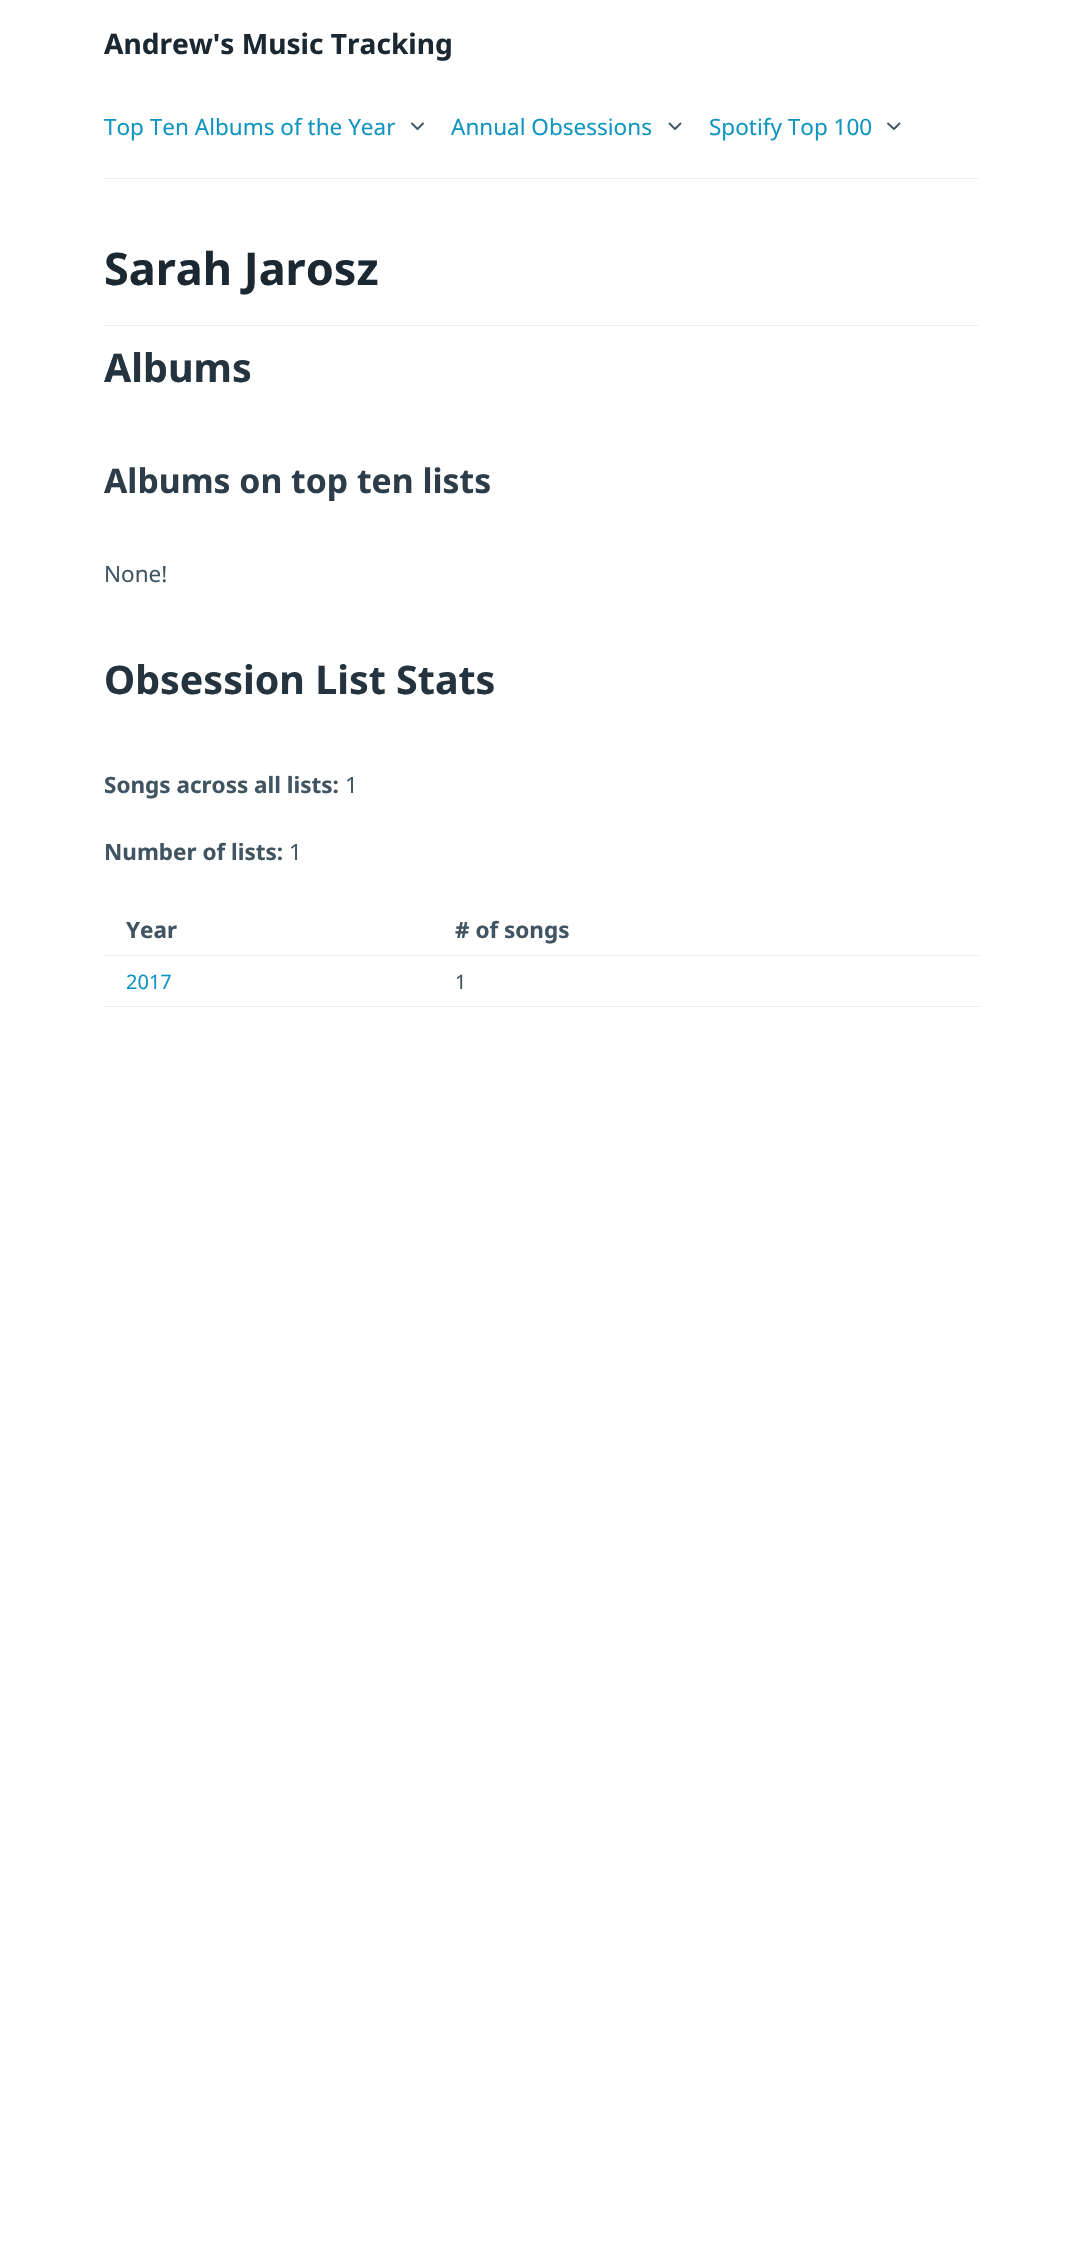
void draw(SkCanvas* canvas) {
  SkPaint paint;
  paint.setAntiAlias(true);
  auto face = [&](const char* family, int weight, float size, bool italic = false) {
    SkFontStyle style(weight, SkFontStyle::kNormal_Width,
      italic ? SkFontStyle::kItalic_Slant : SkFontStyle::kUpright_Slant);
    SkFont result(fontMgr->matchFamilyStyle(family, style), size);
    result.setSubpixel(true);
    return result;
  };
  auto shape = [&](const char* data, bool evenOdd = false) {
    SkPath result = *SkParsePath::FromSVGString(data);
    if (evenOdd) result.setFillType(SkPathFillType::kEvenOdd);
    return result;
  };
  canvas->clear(0xffffffff);
  paint.setStroke(true);
  paint.setStrokeWidth(1.9f);
  paint.setStrokeCap(SkPaint::kRound_Cap);
  paint.setStrokeJoin(SkPaint::kRound_Join);
  paint.setColor(0xff415462);
  canvas->drawPath(shape("M412 123.5L417.5 129L423 123.5"), paint);
  canvas->drawPath(shape("M669.5 123.5L675 129L680.5 123.5"), paint);
  canvas->drawPath(shape("M888 123.5L894 129L899.5 123.5"), paint);
  paint.setStroke(false);
  {
    const struct { float x, y, w, h; SkColor color; } items[] = {
      {104, 178, 875, 1, 0xffedf0f3},
      {104, 325, 875, 1, 0xffedf0f3},
      {104, 955, 876, 1, 0xffedf0f3},
      {104, 1006, 876, 1, 0xffedf0f3},
    };
    for (auto [x, y, w, h, color] : items) {
      paint.setColor(color);
      canvas->drawRect(SkRect::MakeXYWH(x, y, w, h), paint);
    }
  }
  auto f0 = face("Noto Sans", 700, 28.1f);
  paint.setColor(0xff1b2832);
  canvas->drawString("Andrew's Music Tracking", 104, 54, f0, paint);
  auto f1 = face("Noto Sans", 400, 22.5f);
  paint.setColor(0xff1095c1);
  {
    const struct { const char* s; float x, y; } items[] = {
      {"Top Ten Albums of the Year", 104, 135},
      {"Annual Obsessions", 451, 135},
      {"Spotify Top 100", 709, 135},
    };
    for (auto [s, x, y] : items) {
      canvas->drawString(s, x, y, f1, paint);
    }
  }
  auto f2 = face("Noto Sans", 700, 45);
  paint.setColor(0xff1b2832);
  canvas->drawString("Sarah Jarosz", 104, 285, f2, paint);
  auto f3 = face("Noto Sans", 700, 39.4f);
  paint.setColor(0xff24333e);
  canvas->drawString("Albums", 104, 382, f3, paint);
  auto f4 = face("Noto Sans", 700, 33.75f);
  paint.setColor(0xff2c3d49);
  canvas->drawString("Albums on top ten lists", 104, 493, f4, paint);
  paint.setColor(0xff415462);
  canvas->drawString("None!", 104, 582, f1, paint);
  paint.setColor(0xff24333e);
  canvas->drawString("Obsession List Stats", 104, 694, f3, paint);
  auto f5 = face("Noto Sans", 700, 22.5f);
  paint.setColor(0xff415462);
  canvas->drawString("Songs across all lists:", 104, 793, f5, paint);
  canvas->drawString("1", 345, 793, f1, paint);
  canvas->drawString("Number of lists:", 104, 860, f5, paint);
  canvas->drawString("1", 289, 860, f1, paint);
  canvas->drawString("Year", 126, 938, f5, paint);
  canvas->drawString("# of songs", 455, 938, f5, paint);
  auto f6 = face("Noto Sans", 400, 20);
  paint.setColor(0xff1095c1);
  canvas->drawString("2017", 126, 989, f6, paint);
  paint.setColor(0xff415462);
  canvas->drawString("1", 455, 989, f6, paint);
}
